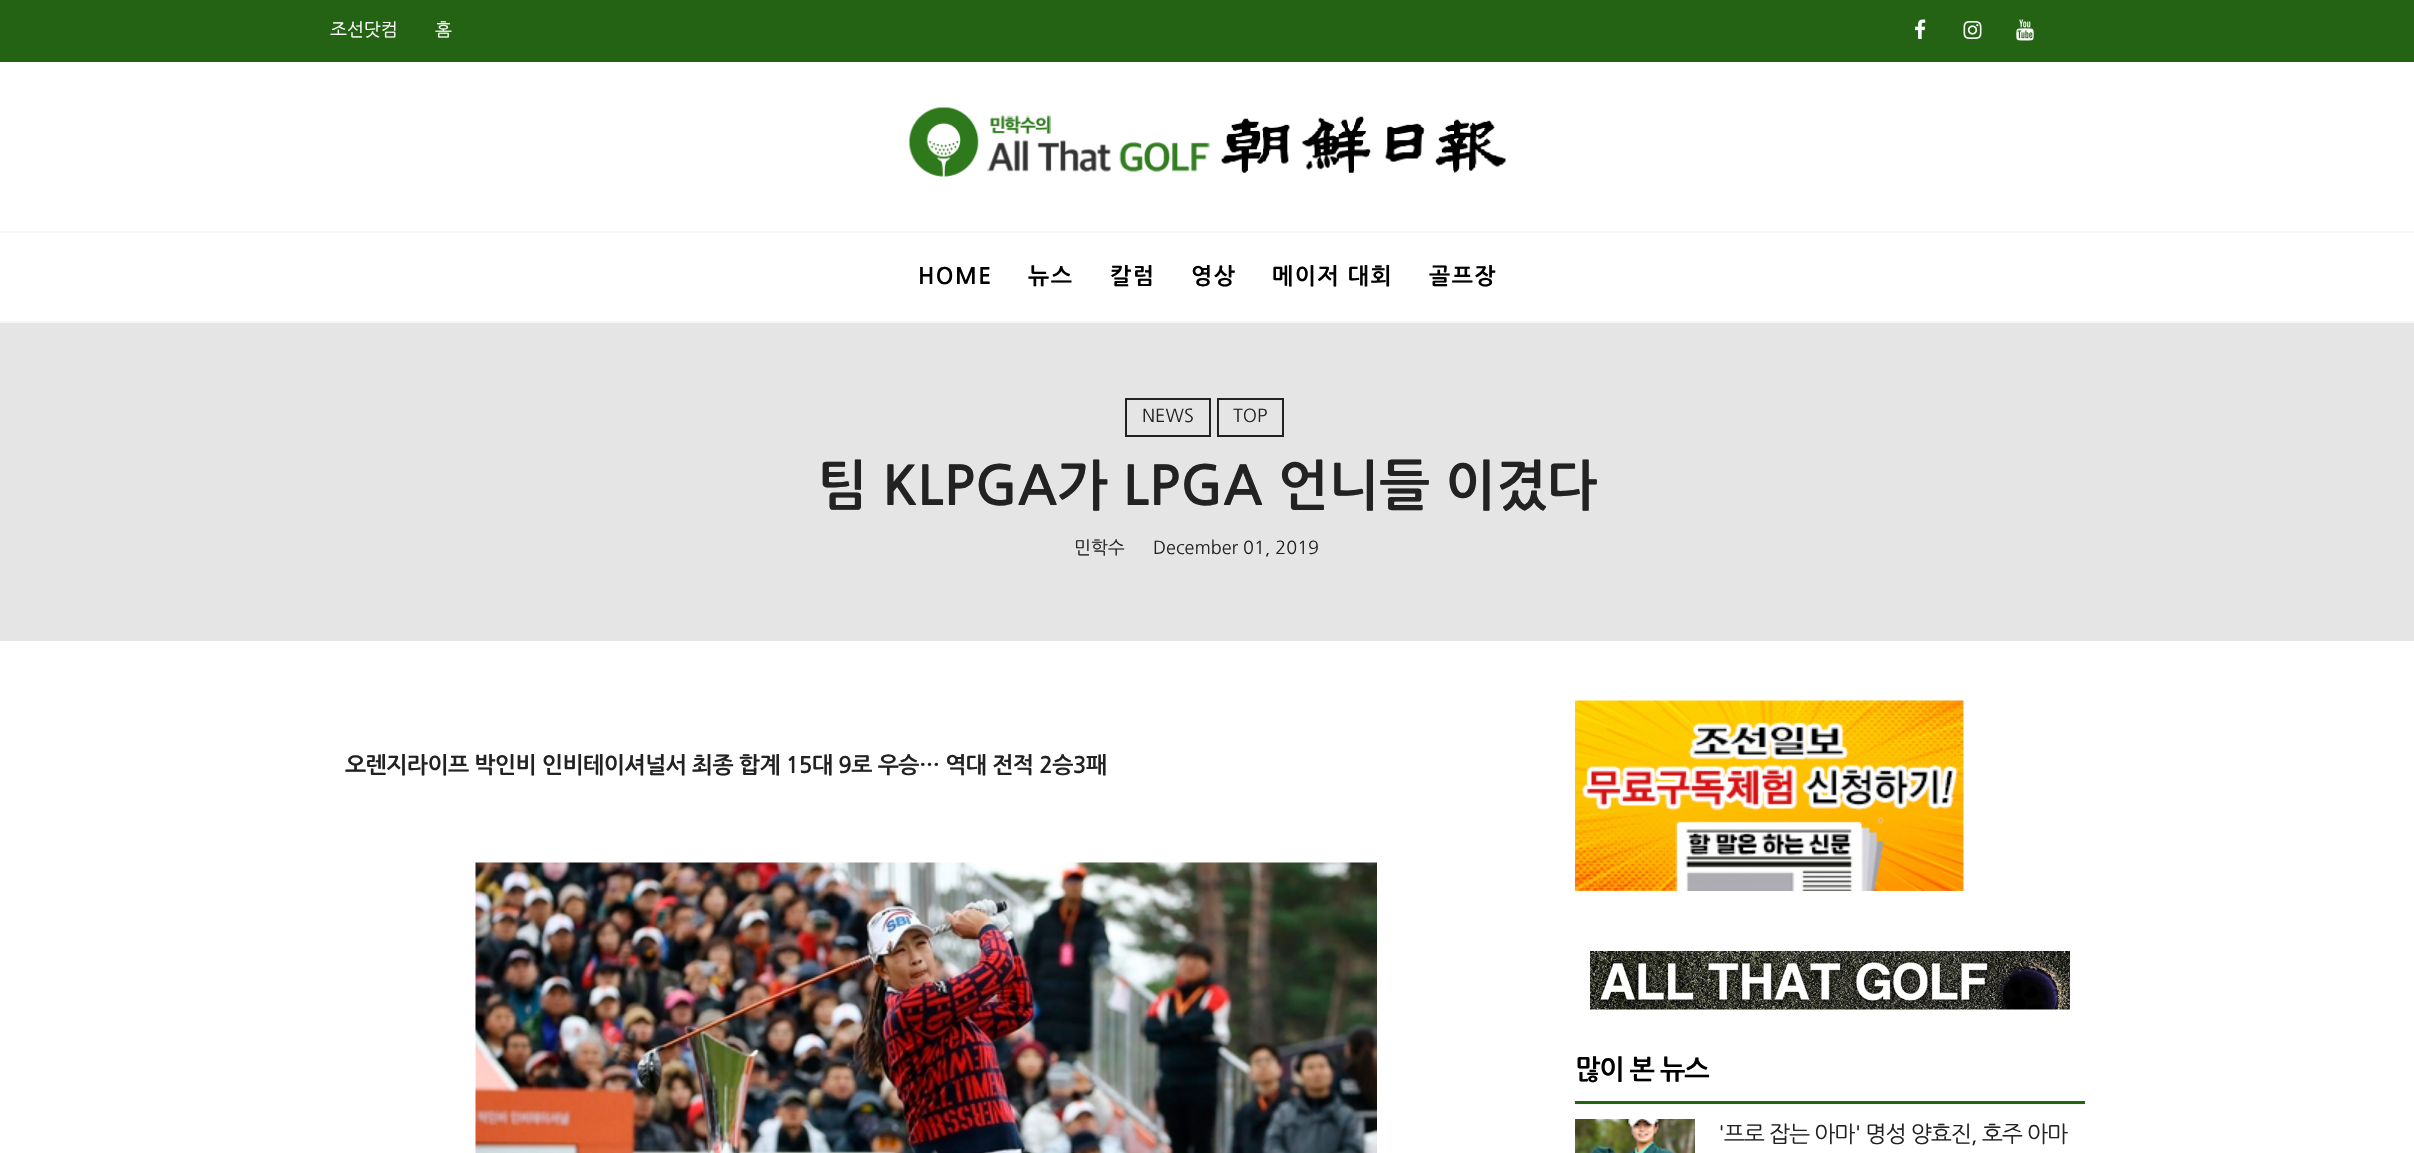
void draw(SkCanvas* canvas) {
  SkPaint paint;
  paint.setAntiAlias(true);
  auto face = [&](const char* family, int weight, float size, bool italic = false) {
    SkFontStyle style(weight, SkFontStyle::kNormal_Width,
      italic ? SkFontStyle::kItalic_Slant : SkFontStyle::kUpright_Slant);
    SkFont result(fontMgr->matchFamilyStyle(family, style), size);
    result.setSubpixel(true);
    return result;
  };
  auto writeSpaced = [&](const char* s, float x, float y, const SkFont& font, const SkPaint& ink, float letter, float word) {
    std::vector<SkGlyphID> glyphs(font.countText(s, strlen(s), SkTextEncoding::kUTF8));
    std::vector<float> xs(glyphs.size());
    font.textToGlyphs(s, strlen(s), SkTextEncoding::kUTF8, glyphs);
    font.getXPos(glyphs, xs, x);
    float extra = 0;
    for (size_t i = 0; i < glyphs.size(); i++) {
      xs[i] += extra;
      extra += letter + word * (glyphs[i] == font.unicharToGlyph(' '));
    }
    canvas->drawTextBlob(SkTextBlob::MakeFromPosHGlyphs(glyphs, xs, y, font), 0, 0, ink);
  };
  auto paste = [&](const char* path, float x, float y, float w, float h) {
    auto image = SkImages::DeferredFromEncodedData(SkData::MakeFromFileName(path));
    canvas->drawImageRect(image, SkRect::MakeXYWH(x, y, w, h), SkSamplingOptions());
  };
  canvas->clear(0xffffffff);
  paint.setColor(0xff236313);
  canvas->drawRect(SkRect::MakeXYWH(0, 0, 2414, 62), paint);
  paste("img/1.png", 1915, 19, 11, 20);
  paste("img/2.png", 1963, 21, 19, 18);
  paste("img/3.png", 2016, 19, 18, 22);
  paint.setColor(0xfff7f7f7);
  canvas->drawRect(SkRect::MakeXYWH(0, 231, 2414, 2), paint);
  paste("img/4.png", 908, 107, 598, 70);
  canvas->drawRect(SkRect::MakeXYWH(0, 321, 2414, 2), paint);
  paint.setColor(0xffe5e5e5);
  canvas->drawRect(SkRect::MakeXYWH(0, 323, 2414, 318), paint);
  paint.setStroke(true);
  paint.setStrokeWidth(2);
  paint.setColor(0xff222222);
  canvas->drawRect(SkRect::MakeXYWH(1126, 399, 84, 37), paint);
  canvas->drawRect(SkRect::MakeXYWH(1218, 399, 65, 37), paint);
  paste("img/5.png", 475, 862, 902, 291);
  paste("img/6.png", 1575, 700, 389, 191);
  paste("img/7.png", 1590, 951, 480, 59);
  paint.setStroke(false);
  paint.setColor(0xfff7f7f7);
  canvas->drawRect(SkRect::MakeXYWH(1575, 1104, 510, 1), paint);
  paint.setColor(0xff236313);
  canvas->drawRect(SkRect::MakeXYWH(1575, 1101, 510, 3), paint);
  paste("img/8.png", 1575, 1119, 120, 34);
  auto f0 = face("NanumGothic", 400, 18);
  paint.setColor(0xffffffff);
  canvas->drawString("조선닷컴", 330, 36, f0, paint);
  canvas->drawString("홈", 435, 36, f0, paint);
  auto f1 = face("NanumGothic", 700, 22.5f);
  paint.setColor(0xff000000);
  {
    const struct { const char* s; float x, y; } items[] = {
      {"HOME", 918, 284},
      {"뉴스", 1028, 284},
      {"칼럼", 1110, 284},
      {"영상", 1191, 284},
      {"메이저 대회", 1272, 284},
      {"골프장", 1429, 284},
    };
    for (auto [s, x, y] : items) {
      writeSpaced(s, x, y, f1, paint, 1.5f, 0);
    }
  }
  paint.setColor(0xff222222);
  canvas->drawString("NEWS", 1142, 422, f0, paint);
  canvas->drawString("TOP", 1233, 422, f0, paint);
  auto f2 = face("NanumGothic", 700, 54);
  canvas->drawString("팀 KLPGA가 LPGA 언니들 이겼다", 817, 505, f2, paint);
  canvas->drawString("민학수", 1074, 554, f0, paint);
  canvas->drawString("December 01, 2019", 1153, 554, f0, paint);
  writeSpaced("오렌지라이프 박인비 인비테이셔널서 최종 합계 15대 9로 우승… 역대 전적 2승3패", 345, 773, f1, paint, -0.55f, 0);
  auto f3 = face("NanumGothic", 700, 27);
  paint.setColor(0xff000000);
  writeSpaced("많이 본 뉴스", 1575, 1079, f3, paint, -1.25f, 0);
  auto f4 = face("NanumGothic", 400, 22.5f);
  paint.setColor(0xff222222);
  writeSpaced("'프로 잡는 아마' 명성 양효진, 호주 아마", 1718, 1142, f4, paint, -1.1f, 0);
}
